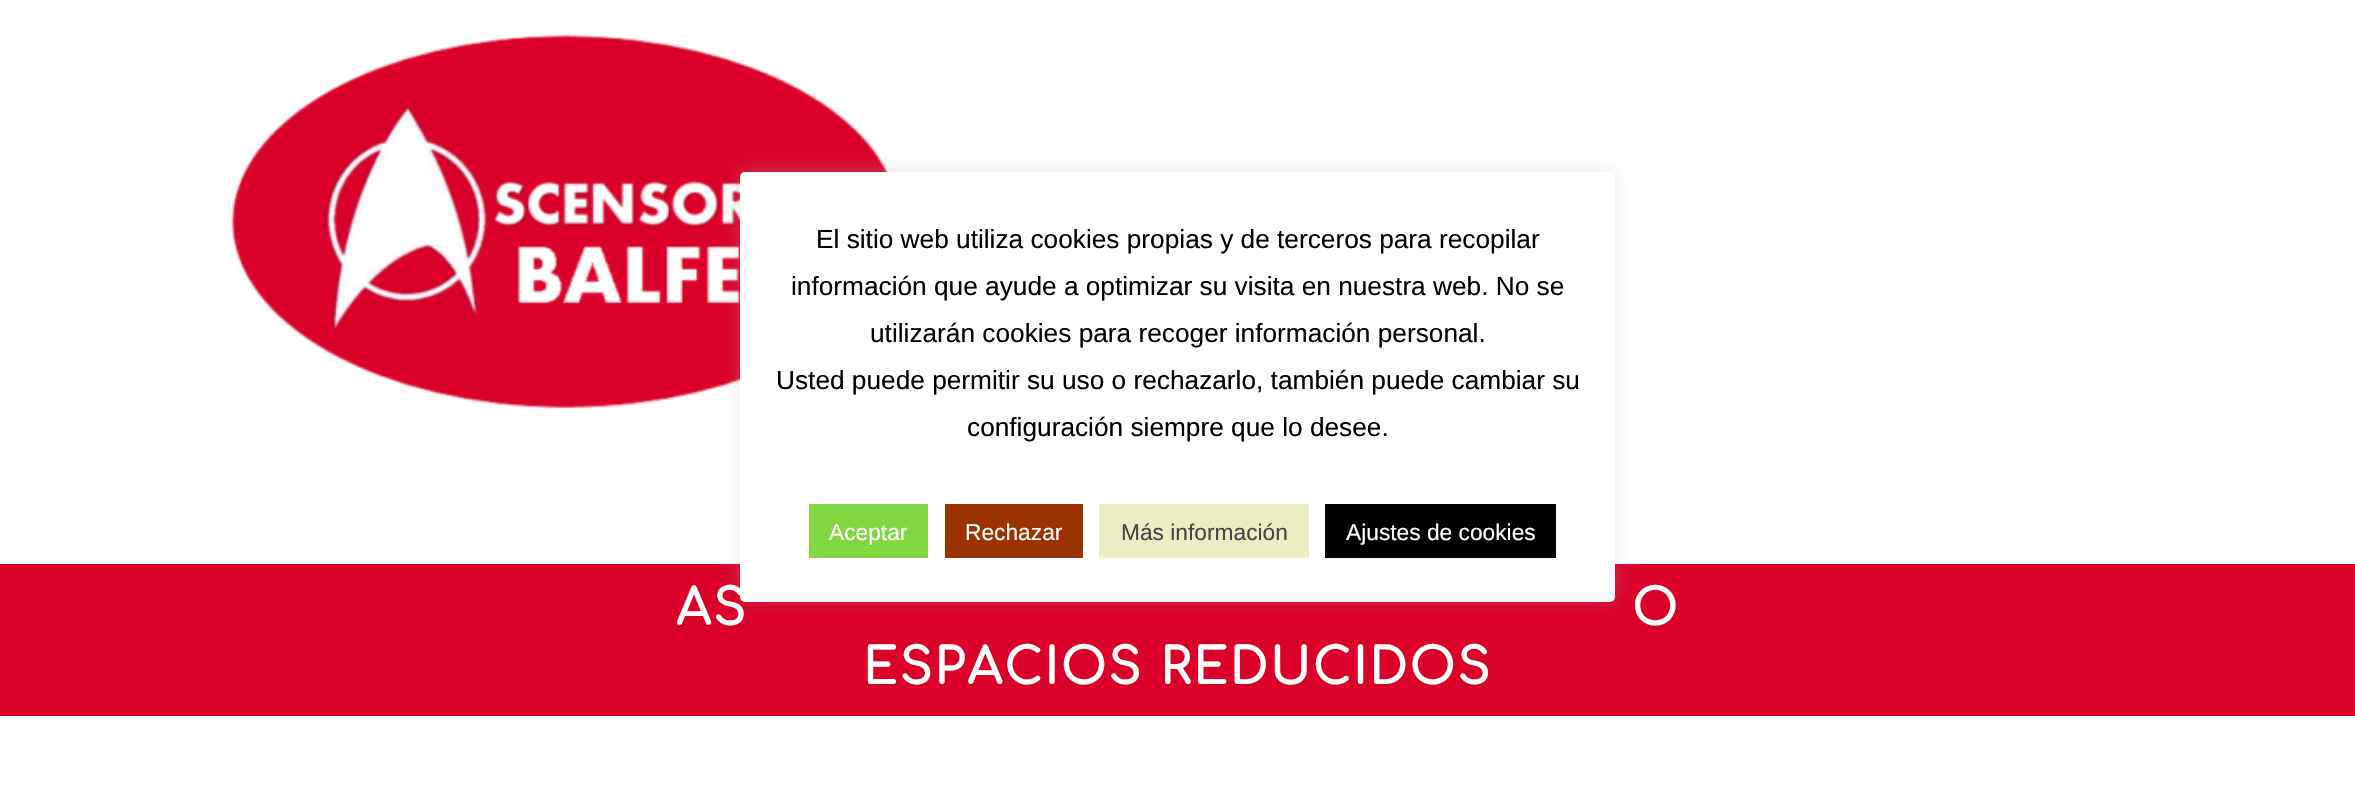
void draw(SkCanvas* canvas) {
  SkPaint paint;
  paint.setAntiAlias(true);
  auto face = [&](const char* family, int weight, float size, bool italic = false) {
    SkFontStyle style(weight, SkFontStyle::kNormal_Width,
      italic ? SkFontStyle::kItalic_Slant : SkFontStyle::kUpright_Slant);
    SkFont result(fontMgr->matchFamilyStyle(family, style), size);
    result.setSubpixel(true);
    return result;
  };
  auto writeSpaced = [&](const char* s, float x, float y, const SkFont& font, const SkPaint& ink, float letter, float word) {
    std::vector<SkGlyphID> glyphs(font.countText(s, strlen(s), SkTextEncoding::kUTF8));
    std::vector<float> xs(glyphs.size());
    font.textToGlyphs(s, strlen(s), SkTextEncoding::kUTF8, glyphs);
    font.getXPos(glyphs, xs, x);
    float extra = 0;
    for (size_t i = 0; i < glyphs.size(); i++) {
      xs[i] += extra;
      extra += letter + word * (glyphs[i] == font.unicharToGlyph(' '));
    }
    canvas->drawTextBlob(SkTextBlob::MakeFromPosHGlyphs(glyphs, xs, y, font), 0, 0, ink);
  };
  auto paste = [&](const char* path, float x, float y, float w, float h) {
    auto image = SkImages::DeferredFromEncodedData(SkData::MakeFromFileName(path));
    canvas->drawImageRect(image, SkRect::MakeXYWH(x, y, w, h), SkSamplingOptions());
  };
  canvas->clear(0xffffffff);
  paste("img/1.png", 230, 34, 659, 375);
  paint.setColor(0xffdb002a);
  canvas->drawRect(SkRect::MakeXYWH(0, 564, 2355, 152), paint);
  paint.setColor(0x4dacabab);
  paint.setMaskFilter(SkMaskFilter::MakeBlur(kNormal_SkBlurStyle, 9));
  canvas->drawRoundRect(SkRect::MakeXYWH(740, 170, 875, 430), 5, 5, paint);
  paint.setMaskFilter(nullptr);
  paint.setColor(0xffffffff);
  canvas->drawRoundRect(SkRect::MakeXYWH(740, 172, 875, 430), 5, 5, paint);
  {
    const struct { float x, y, w, h; SkColor color; } items[] = {
      {809, 504, 119, 54, 0xff81d742},
      {945, 504, 138, 54, 0xff9b3300},
      {1099, 504, 210, 54, 0xffededc4},
      {1325, 504, 231, 54, 0xff000000},
    };
    for (auto [x, y, w, h, color] : items) {
      paint.setColor(color);
      canvas->drawRect(SkRect::MakeXYWH(x, y, w, h), paint);
    }
  }
  auto f0 = face("Liberation Sans", 400, 26.25f);
  {
    const struct { const char* s; float x, y; } items[] = {
      {"El sitio web utiliza cookies propias y de terceros para recopilar", 816, 248},
      {"información que ayude a optimizar su visita en nuestra web. No se", 791, 295},
      {"utilizarán cookies para recoger información personal.", 870, 342},
      {"Usted puede permitir su uso o rechazarlo, también puede cambiar su", 776, 389},
      {"configuración siempre que lo desee.", 967, 436},
    };
    for (auto [s, x, y] : items) {
      canvas->drawString(s, x, y, f0, paint);
    }
  }
  auto f1 = face("Liberation Sans", 400, 22.75f);
  paint.setColor(0xffffffff);
  canvas->drawString("Aceptar", 829, 540, f1, paint);
  canvas->drawString("Rechazar", 965, 540, f1, paint);
  paint.setColor(0xff444444);
  canvas->drawString("Más información", 1121, 540, f1, paint);
  paint.setColor(0xffffffff);
  canvas->drawString("Ajustes de cookies", 1346, 540, f1, paint);
  auto f2 = face("Comfortaa", 700, 49);
  {
    const struct { const char* s; float x, y; } items[] = {
      {"AS", 676, 625},
      {"O", 1632, 625},
      {"ESPACIOS REDUCIDOS", 863, 684},
    };
    for (auto [s, x, y] : items) {
      writeSpaced(s, x, y, f2, paint, 2.6f, 0);
    }
  }
}
